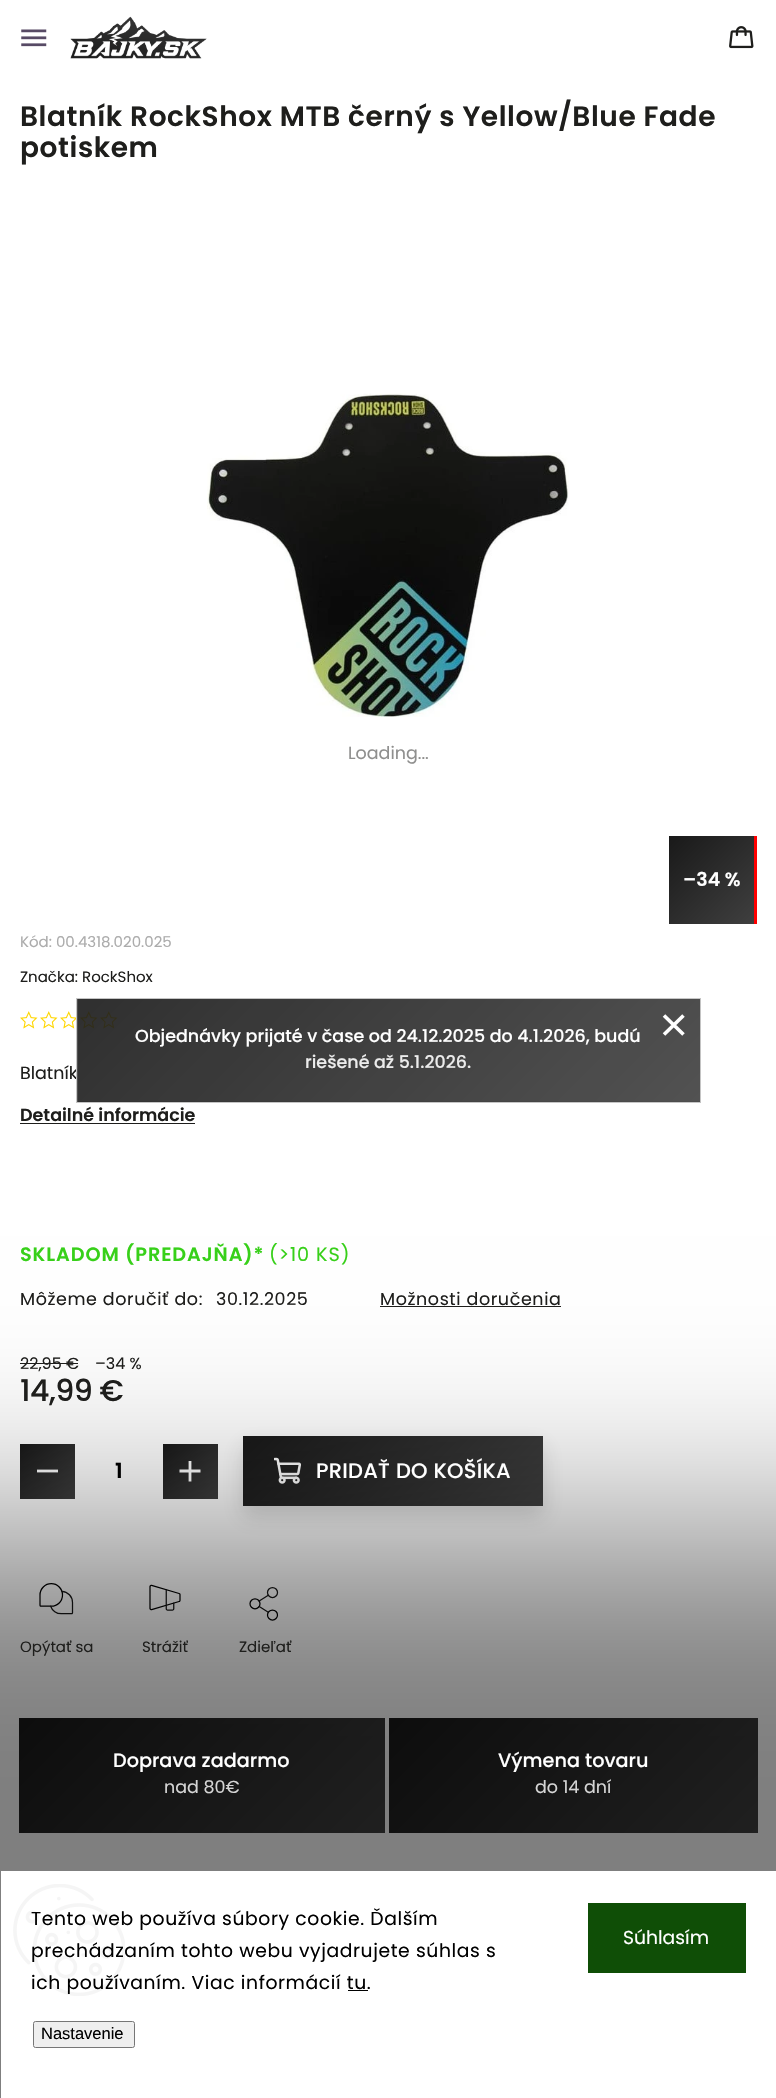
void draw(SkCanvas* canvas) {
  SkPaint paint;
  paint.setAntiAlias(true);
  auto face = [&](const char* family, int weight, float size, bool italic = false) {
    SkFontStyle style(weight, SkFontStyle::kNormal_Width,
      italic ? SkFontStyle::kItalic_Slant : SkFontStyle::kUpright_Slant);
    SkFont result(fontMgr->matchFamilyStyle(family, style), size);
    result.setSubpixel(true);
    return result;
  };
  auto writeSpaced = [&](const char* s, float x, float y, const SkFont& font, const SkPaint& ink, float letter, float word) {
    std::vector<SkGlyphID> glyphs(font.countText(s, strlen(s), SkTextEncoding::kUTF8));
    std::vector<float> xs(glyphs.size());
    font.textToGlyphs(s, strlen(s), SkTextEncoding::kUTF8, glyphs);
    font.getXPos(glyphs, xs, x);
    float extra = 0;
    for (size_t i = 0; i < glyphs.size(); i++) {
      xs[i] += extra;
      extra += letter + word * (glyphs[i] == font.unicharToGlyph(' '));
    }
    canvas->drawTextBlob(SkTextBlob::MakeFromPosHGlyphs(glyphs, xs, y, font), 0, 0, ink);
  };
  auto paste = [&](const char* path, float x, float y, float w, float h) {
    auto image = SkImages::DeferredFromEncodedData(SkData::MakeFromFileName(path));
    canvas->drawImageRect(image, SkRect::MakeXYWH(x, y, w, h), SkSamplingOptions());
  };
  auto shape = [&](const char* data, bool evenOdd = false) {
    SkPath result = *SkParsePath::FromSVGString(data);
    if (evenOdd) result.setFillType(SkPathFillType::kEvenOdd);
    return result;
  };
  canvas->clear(0xffffffff);
  paste("img/1.png", 21, 29, 26, 18);
  paste("img/2.png", 70, 16, 137, 43);
  paste("img/3.png", 729, 26, 25, 23);
  paste("img/4.png", 207, 393, 362, 324);
  {
    const SkColor colors[] = {0xff191919, 0xff3f3f3f};
    const float stops[] = {0, 1};
    const SkPoint ends[] = {{668, 837}, {754, 923}};
    paint.setShader(SkGradientShader::MakeLinear(ends, colors, stops, 2, SkTileMode::kClamp));
    paint.setAlpha(255);
  }
  canvas->drawRect(SkRect::MakeXYWH(669, 836, 85, 88), paint);
  paint.setShader(nullptr);
  paint.setColor(0xffff0000);
  canvas->drawRect(SkRect::MakeXYWH(754, 836, 3, 88), paint);
  paste("img/5.png", 20, 1011, 18, 18);
  paste("img/5.png", 40, 1011, 18, 18);
  paste("img/5.png", 60, 1011, 18, 18);
  paste("img/5.png", 80, 1011, 18, 18);
  paste("img/5.png", 100, 1011, 18, 18);
  {
    const struct { float x, y, w, h; SkColor color; } items[] = {
      {20, 1123, 175, 1, 0xff1e1e1c},
      {380, 1306, 181, 1, 0xff1e1e1c},
      {20, 1363, 58, 1, 0xff1e1e1c},
    };
    for (auto [x, y, w, h, color] : items) {
      paint.setColor(color);
      canvas->drawRect(SkRect::MakeXYWH(x, y, w, h), paint);
    }
  }
  {
    const SkColor colors[] = {0xff191919, 0xff3f3f3f};
    const float stops[] = {0, 1};
    const SkPoint ends[] = {{20, 1444}, {75, 1499}};
    paint.setShader(SkGradientShader::MakeLinear(ends, colors, stops, 2, SkTileMode::kClamp));
    paint.setAlpha(255);
  }
  canvas->drawRect(SkRect::MakeXYWH(20, 1444, 55, 55), paint);
  paint.setStroke(true);
  paint.setStrokeWidth(2.8f);
  paint.setShader(nullptr);
  paint.setColor(0xffffffff);
  canvas->drawPath(shape("M37 1471H58"), paint);
  paint.setStroke(false);
  paint.setColor(0x291e1e1c);
  paint.setMaskFilter(SkMaskFilter::MakeBlur(kNormal_SkBlurStyle, 10));
  canvas->drawRect(SkRect::MakeXYWH(243, 1446, 300, 70), paint);
  paint.setMaskFilter(nullptr);
  {
    const SkColor colors[] = {0xff191919, 0xff3f3f3f};
    const float stops[] = {0, 1};
    const SkPoint ends[] = {{163, 1444}, {218, 1499}};
    paint.setShader(SkGradientShader::MakeLinear(ends, colors, stops, 2, SkTileMode::kClamp));
    paint.setAlpha(255);
  }
  canvas->drawRect(SkRect::MakeXYWH(163, 1444, 55, 55), paint);
  paint.setStroke(true);
  paint.setShader(nullptr);
  paint.setColor(0xffffffff);
  canvas->drawPath(shape("M179.5 1471H200.5M190 1481.5V1461"), paint);
  paint.setStroke(false);
  {
    const SkColor colors[] = {0xff191919, 0xff3f3f3f};
    const float stops[] = {0, 1};
    const SkPoint ends[] = {{300, 1379}, {485, 1564}};
    paint.setShader(SkGradientShader::MakeLinear(ends, colors, stops, 2, SkTileMode::kClamp));
    paint.setAlpha(255);
  }
  canvas->drawRect(SkRect::MakeXYWH(243, 1436, 300, 70), paint);
  paste("img/6.png", 274, 1457, 27, 27);
  paste("img/7.png", 39, 1583, 35, 32);
  paste("img/8.png", 149, 1584, 32, 27);
  paste("img/9.png", 249, 1587, 30, 34);
  {
    const SkColor colors[] = {0xff191919, 0xff3f3f3f};
    const float stops[] = {0, 1};
    const SkPoint ends[] = {{82, 1655}, {322, 1895}};
    paint.setShader(SkGradientShader::MakeLinear(ends, colors, stops, 2, SkTileMode::kClamp));
    paint.setAlpha(255);
  }
  canvas->drawRect(SkRect::MakeXYWH(19, 1718, 366, 115), paint);
  {
    const SkColor colors[] = {0xff191919, 0xff3f3f3f};
    const float stops[] = {0, 1};
    const SkPoint ends[] = {{452, 1654}, {694, 1896}};
    paint.setShader(SkGradientShader::MakeLinear(ends, colors, stops, 2, SkTileMode::kClamp));
    paint.setAlpha(255);
  }
  canvas->drawRect(SkRect::MakeXYWH(389, 1718, 369, 115), paint);
  {
    const SkColor colors[] = {0xff303030, 0xff525252};
    const float stops[] = {0, 1};
    const SkPoint ends[] = {{-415, 766}, {-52, 1129}};
    paint.setShader(SkGradientShader::MakeLinear(ends, colors, stops, 2, SkTileMode::kClamp));
    paint.setAlpha(255);
  }
  canvas->drawRect(SkRect::MakeXYWH(76, 998, 2, 1), paint);
  {
    const SkColor colors[] = {0xff303030, 0xff525252};
    const float stops[] = {0, 1};
    const SkPoint ends[] = {{208, 766}, {570, 1129}};
    paint.setShader(SkGradientShader::MakeLinear(ends, colors, stops, 2, SkTileMode::kClamp));
    paint.setAlpha(255);
  }
  canvas->drawRect(SkRect::MakeXYWH(78, 998, 622, 1), paint);
  {
    const SkColor colors[] = {0xff303030, 0xff525252};
    const float stops[] = {0, 1};
    const SkPoint ends[] = {{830, 766}, {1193, 1129}};
    paint.setShader(SkGradientShader::MakeLinear(ends, colors, stops, 2, SkTileMode::kClamp));
    paint.setAlpha(255);
  }
  canvas->drawRect(SkRect::MakeXYWH(700, 998, 1, 1), paint);
  {
    const SkColor colors[] = {0xe6191919, 0xe63f3f3f};
    const float stops[] = {0, 1};
    const SkPoint ends[] = {{208, 869}, {570, 1231}};
    paint.setShader(SkGradientShader::MakeLinear(ends, colors, stops, 2, SkTileMode::kClamp));
    paint.setAlpha(255);
  }
  canvas->drawRect(SkRect::MakeXYWH(78, 999, 622, 102), paint);
  {
    const SkColor colors[] = {0xff303030, 0xff525252};
    const float stops[] = {0, 1};
    const SkPoint ends[] = {{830, 869}, {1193, 1231}};
    paint.setShader(SkGradientShader::MakeLinear(ends, colors, stops, 2, SkTileMode::kClamp));
    paint.setAlpha(255);
  }
  canvas->drawRect(SkRect::MakeXYWH(700, 999, 1, 102), paint);
  {
    const SkColor colors[] = {0xff303030, 0xff525252};
    const float stops[] = {0, 1};
    const SkPoint ends[] = {{-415, 971}, {-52, 1334}};
    paint.setShader(SkGradientShader::MakeLinear(ends, colors, stops, 2, SkTileMode::kClamp));
    paint.setAlpha(255);
  }
  canvas->drawRect(SkRect::MakeXYWH(76, 1101, 2, 2), paint);
  {
    const SkColor colors[] = {0xff303030, 0xff525252};
    const float stops[] = {0, 1};
    const SkPoint ends[] = {{208, 971}, {570, 1334}};
    paint.setShader(SkGradientShader::MakeLinear(ends, colors, stops, 2, SkTileMode::kClamp));
    paint.setAlpha(255);
  }
  canvas->drawRect(SkRect::MakeXYWH(78, 1101, 622, 2), paint);
  {
    const SkColor colors[] = {0xff303030, 0xff525252};
    const float stops[] = {0, 1};
    const SkPoint ends[] = {{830, 971}, {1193, 1334}};
    paint.setShader(SkGradientShader::MakeLinear(ends, colors, stops, 2, SkTileMode::kClamp));
    paint.setAlpha(255);
  }
  canvas->drawRect(SkRect::MakeXYWH(700, 1101, 1, 2), paint);
  paint.setShader(nullptr);
  paint.setColor(0x80000000);
  paint.setMaskFilter(SkMaskFilter::MakeBlur(kNormal_SkBlurStyle, 100));
  canvas->drawRect(SkRect::MakeXYWH(-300, 1534, 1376, 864), paint);
  paint.setMaskFilter(nullptr);
  paint.setColor(0xffffffff);
  canvas->drawRect(SkRect::MakeXYWH(1, 1871, 775, 227), paint);
  paste("img/10.png", 13, 1884, 112, 112);
  paint.setColor(0xff000000);
  canvas->drawRect(SkRect::MakeXYWH(348, 1990, 20, 1), paint);
  paint.setColor(0xffefefef);
  canvas->drawRoundRect(SkRect::MakeXYWH(33.5f, 2021.5f, 101, 26), 2, 2, paint);
  paint.setStroke(true);
  paint.setStrokeWidth(1);
  paint.setColor(0xff767676);
  canvas->drawRoundRect(SkRect::MakeXYWH(33.5f, 2021.5f, 101, 26), 2, 2, paint);
  paint.setStroke(false);
  paint.setColor(0xff0f4e06);
  canvas->drawRect(SkRect::MakeXYWH(588, 1903, 158, 70), paint);
  auto f0 = face("Poppins", 600, 28);
  paint.setColor(0xff1e1e1c);
  writeSpaced("Blatník RockShox MTB černý s Yellow/Blue Fade", 20, 126, f0, paint, 0.6f, 0);
  writeSpaced("potiskem", 20, 157, f0, paint, 0.6f, 0);
  auto f1 = face("Poppins", 400, 17.5f);
  paint.setColor(0xff8f8f8e);
  canvas->drawString("Loading...", 348, 759, f1, paint);
  auto f2 = face("Poppins", 600, 19);
  paint.setColor(0xffffffff);
  canvas->drawString("–34 %", 683, 886, f2, paint);
  auto f3 = face("Poppins", 400, 15);
  paint.setColor(0xffacacac);
  canvas->drawString("Kód: 00.4318.020.025", 20, 947, f3, paint);
  paint.setColor(0xff1e1e1c);
  canvas->drawString("Značka: RockShox", 20, 982, f3, paint);
  canvas->drawString("Blatník", 20, 1079, f1, paint);
  auto f4 = face("Poppins", 600, 17.5f);
  canvas->drawString("Detailné informácie", 20, 1121, f4, paint);
  auto f5 = face("Poppins", 600, 19.25f);
  paint.setColor(0xff37d019);
  writeSpaced("SKLADOM (PREDAJŇA)*", 20, 1261, f5, paint, 0.9f, 0);
  auto f6 = face("Poppins", 400, 19.25f);
  writeSpaced("(>10 KS)", 269, 1261, f6, paint, 0.9f, 0);
  paint.setColor(0xff1e1e1c);
  {
    const struct { const char* s; float x, y; } items[] = {
      {"Môžeme doručiť do:", 20, 1305},
      {"30.12.2025", 216, 1305},
      {"Možnosti doručenia", 380, 1305},
    };
    for (auto [s, x, y] : items) {
      writeSpaced(s, x, y, f1, paint, 0.6f, 0);
    }
  }
  auto f7 = face("Poppins", 400, 16);
  canvas->drawString("22,95 €", 20, 1369, f7, paint);
  canvas->drawString("–34 %", 95, 1369, f7, paint);
  auto f8 = face("Poppins", 500, 30);
  writeSpaced("14,99 €", 20, 1401, f8, paint, -0.5f, 0);
  auto f9 = face("Poppins", 600, 21);
  paint.setColor(0xff000000);
  canvas->drawString("1", 115, 1478, f9, paint);
  auto f10 = face("Poppins", 500, 21);
  paint.setColor(0xffffffff);
  writeSpaced("PRIDAŤ DO KOŠÍKA", 316, 1478, f10, paint, 0.25f, 0);
  paint.setColor(0xff1e1e1c);
  {
    const struct { const char* s; float x, y; } items[] = {
      {"Opýtať sa", 20, 1652},
      {"Strážiť", 142, 1652},
      {"Zdieľať", 239, 1652},
    };
    for (auto [s, x, y] : items) {
      canvas->drawString(s, x, y, f3, paint);
    }
  }
  auto f11 = face("Poppins", 500, 19.25f);
  paint.setColor(0xffffffff);
  canvas->drawString("Doprava zadarmo", 113, 1767, f11, paint);
  paint.setColor(0xffd5d5d5);
  canvas->drawString("nad 80€", 164, 1793, f1, paint);
  paint.setColor(0xffffffff);
  canvas->drawString("Výmena tovaru", 498, 1767, f11, paint);
  paint.setColor(0xffd5d5d5);
  canvas->drawString("do 14 dní", 535, 1793, f1, paint);
  {
    const SkColor colors[] = {0xe6191919, 0xe63f3f3f};
    const float stops[] = {0, 1};
    const SkPoint ends[] = {{-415, 869}, {-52, 1231}};
    paint.setShader(SkGradientShader::MakeLinear(ends, colors, stops, 2, SkTileMode::kClamp));
    paint.setAlpha(255);
  }
  canvas->drawRect(SkRect::MakeXYWH(76, 999, 2, 102), paint);
  paint.setStroke(true);
  paint.setShader(nullptr);
  paint.setColor(0xe6d3d3d3);
  canvas->drawRect(SkRect::MakeXYWH(76.5f, 998.5f, 624, 104), paint);
  paint.setStrokeWidth(3.6f);
  paint.setColor(0xffffffff);
  canvas->drawPath(shape("M664 1034.5L683.5 1015.5M683.5 1034.5L664 1015.5"), paint);
  auto f12 = face("Poppins", 500, 17.5f);
  paint.setStroke(false);
  canvas->drawString("Objednávky prijaté v čase od 24.12.2025 do 4.1.2026, budú", 135, 1042, f12, paint);
  paint.setColor(0xffececec);
  canvas->drawString("riešené až 5.1.2026.", 305, 1068, f12, paint);
  auto f13 = face("Poppins", 400, 18.75f);
  paint.setColor(0xff000000);
  {
    const struct { const char* s; float x, y; } items[] = {
      {"Tento web používa súbory cookie. Ďalším", 31, 1925},
      {"prechádzaním tohto webu vyjadrujete súhlas s", 31, 1957},
      {"ich používaním. Viac informácií tu.", 31, 1989},
    };
    for (auto [s, x, y] : items) {
      writeSpaced(s, x, y, f13, paint, 0.6f, 0);
    }
  }
  auto f14 = face("Liberation Sans", 400, 16.5f);
  canvas->drawString("Nastavenie", 41, 2039, f14, paint);
  paint.setColor(0xffffffff);
  canvas->drawString("Súhlasím", 623, 1944, f13, paint);
}
